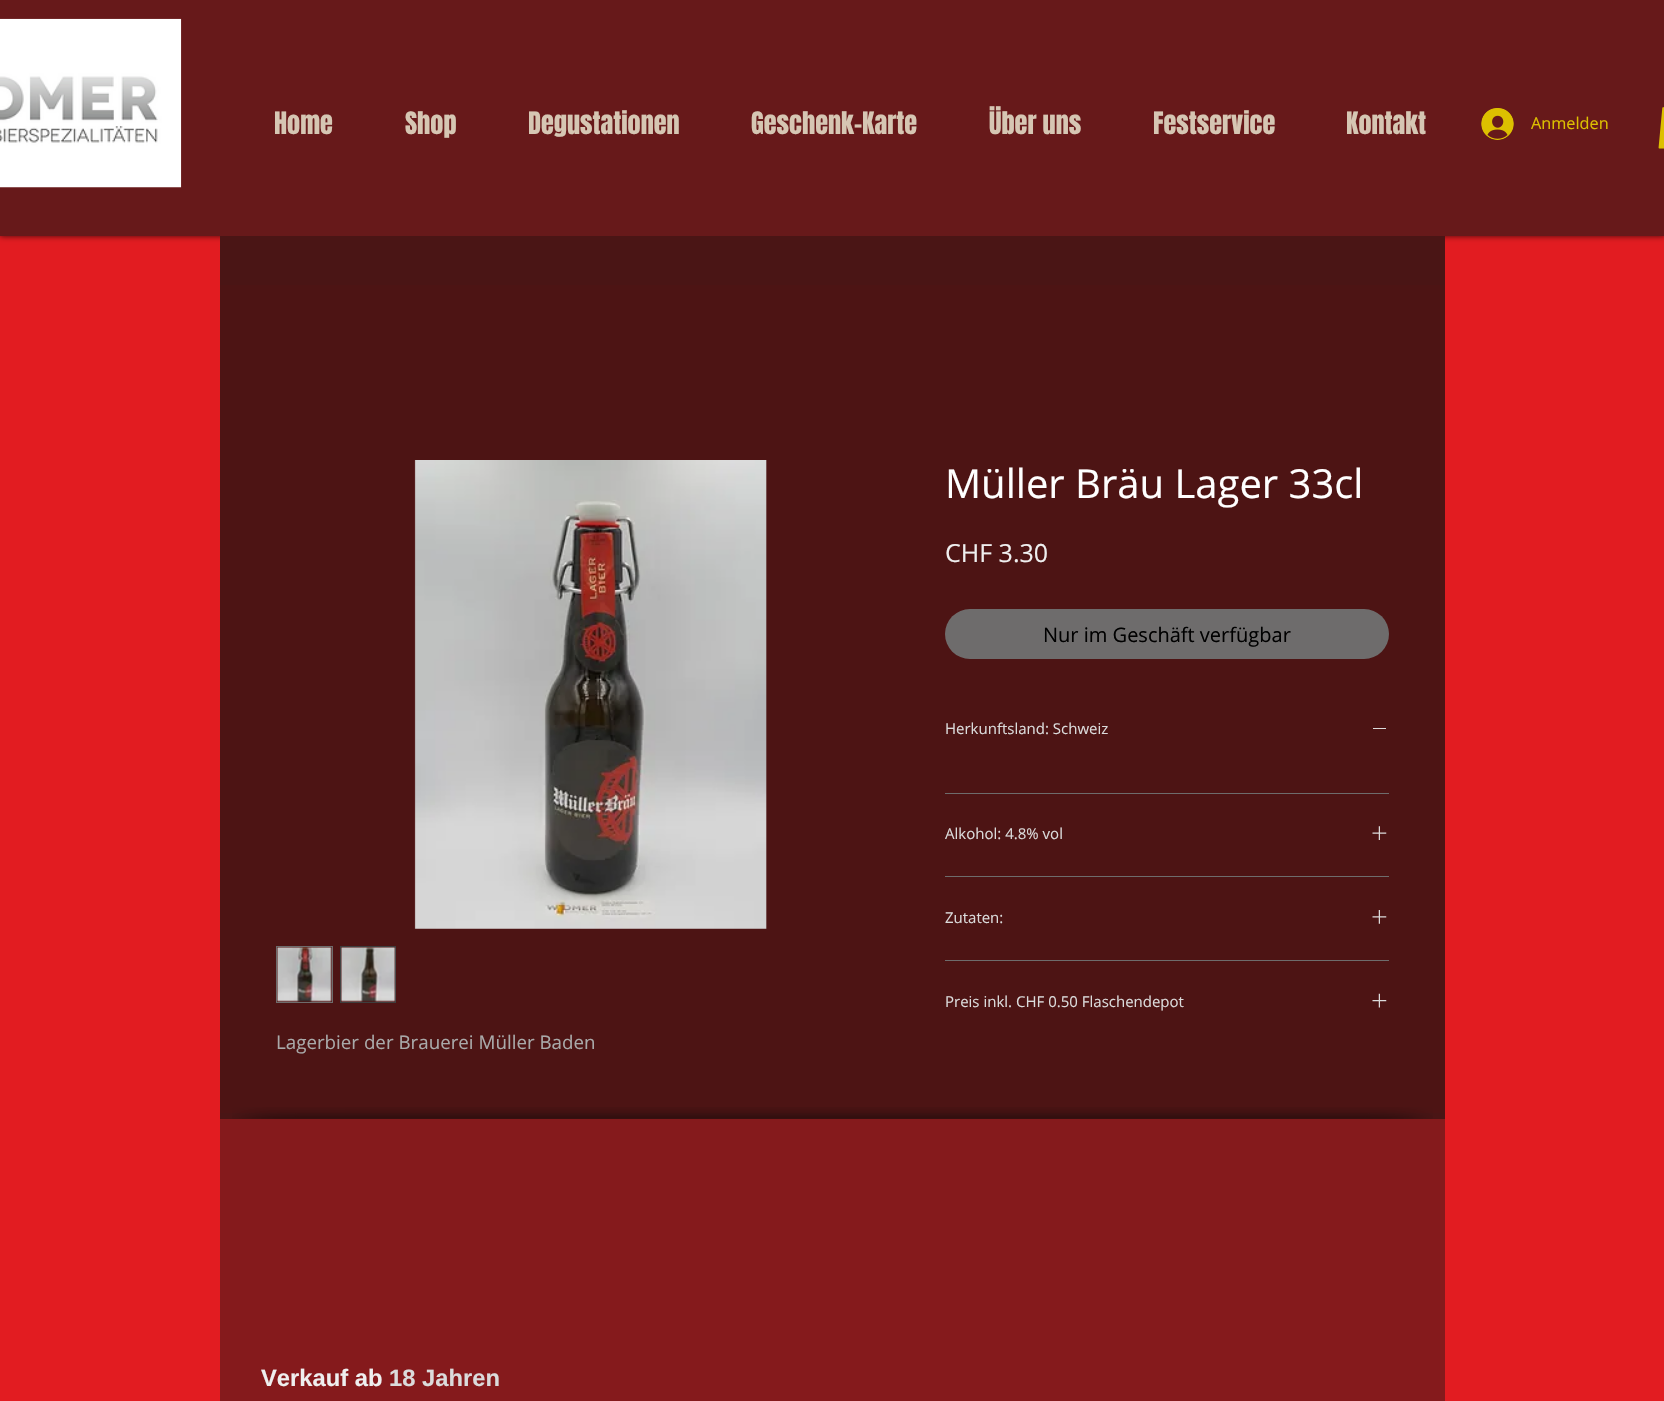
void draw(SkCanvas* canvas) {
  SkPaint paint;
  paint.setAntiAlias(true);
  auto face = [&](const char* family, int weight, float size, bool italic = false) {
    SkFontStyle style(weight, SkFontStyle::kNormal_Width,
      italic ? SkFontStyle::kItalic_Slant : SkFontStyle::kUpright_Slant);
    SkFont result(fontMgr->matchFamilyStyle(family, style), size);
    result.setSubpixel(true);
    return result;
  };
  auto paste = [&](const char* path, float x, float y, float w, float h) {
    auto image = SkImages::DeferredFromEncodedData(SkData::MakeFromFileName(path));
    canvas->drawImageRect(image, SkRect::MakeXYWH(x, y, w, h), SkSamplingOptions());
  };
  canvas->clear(0xffe21c21);
  paint.setColor(0xb3000000);
  paint.setMaskFilter(SkMaskFilter::MakeBlur(kNormal_SkBlurStyle, 3));
  canvas->drawRect(SkRect::MakeXYWH(0, 0, 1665, 236), paint);
  paint.setMaskFilter(nullptr);
  paint.setColor(0xff67191a);
  canvas->drawRect(SkRect::MakeXYWH(0, 0, 1664, 236), paint);
  paste("img/1.png", 0, 18, 182, 170);
  paste("img/2.png", 1481, 108, 33, 32);
  paste("img/3.png", 1658, 107, 6, 42);
  paint.setColor(0xff4a1515);
  canvas->drawRect(SkRect::MakeXYWH(220, 236, 1225, 883), paint);
  paint.setColor(0xff4d1414);
  canvas->drawRect(SkRect::MakeXYWH(220, 285, 1225, 828), paint);
  paint.setColor(0xff6e6c6c);
  canvas->drawRoundRect(SkRect::MakeXYWH(945, 609, 444, 50), 25, 25, paint);
  {
    const struct { float x, y, w, h; SkColor color; } items[] = {
      {945, 793, 444, 1, 0xff6e6c6c},
      {1373, 728, 13, 1, 0xffdbdbdb},
      {945, 876, 444, 1, 0xff6e6c6c},
    };
    for (auto [x, y, w, h, color] : items) {
      paint.setColor(color);
      canvas->drawRect(SkRect::MakeXYWH(x, y, w, h), paint);
    }
  }
  paste("img/4.png", 1372, 826, 15, 14);
  canvas->drawRect(SkRect::MakeXYWH(945, 960, 444, 1), paint);
  paste("img/5.png", 1372, 910, 15, 14);
  paste("img/6.png", 1372, 993, 15, 15);
  paste("img/7.png", 414, 460, 353, 469);
  paint.setStroke(true);
  paint.setStrokeWidth(1);
  canvas->drawRect(SkRect::MakeXYWH(276.5f, 946.5f, 56, 56), paint);
  paste("img/8.png", 277, 947, 55, 55);
  paint.setColor(0xff3e3e3e);
  canvas->drawRect(SkRect::MakeXYWH(340.5f, 946.5f, 55, 56), paint);
  paste("img/9.png", 340, 947, 56, 55);
  paint.setStroke(false);
  paint.setColor(0xff851a1c);
  canvas->drawRect(SkRect::MakeXYWH(220, 1119, 1225, 282), paint);
  paste("img/10.png", 232, 1107, 113, 12);
  paste("img/11.png", 345, 1107, 975, 12);
  paste("img/12.png", 1320, 1107, 113, 12);
  auto f0 = face("Anton", 400, 26.25f);
  paint.setColor(0xffd6c6b3);
  {
    const struct { const char* s; float x, y; } items[] = {
      {"Home", 274, 134},
      {"Shop", 405, 134},
      {"Degustationen", 528, 134},
      {"Geschenk-Karte", 751, 134},
      {"Über uns", 989, 134},
      {"Festservice", 1153, 134},
      {"Kontakt", 1346, 134},
    };
    for (auto [s, x, y] : items) {
      canvas->drawString(s, x, y, f0, paint);
    }
  }
  auto f1 = face("Open Sans", 400, 16.25f);
  paint.setColor(0xffddc000);
  canvas->drawString("Anmelden", 1531, 129, f1, paint);
  auto f2 = face("Open Sans", 400, 40);
  paint.setColor(0xffffffff);
  canvas->drawString("Müller Bräu Lager 33cl", 945, 498, f2, paint);
  auto f3 = face("Open Sans", 400, 25);
  paint.setColor(0xffefefef);
  canvas->drawString("CHF 3.30", 945, 562, f3, paint);
  auto f4 = face("Open Sans", 400, 20);
  paint.setColor(0xff000000);
  canvas->drawString("Nur im Geschäft verfügbar", 1043, 642, f4, paint);
  auto f5 = face("Open Sans", 400, 15);
  paint.setColor(0xffdbdbdb);
  {
    const struct { const char* s; float x, y; } items[] = {
      {"Herkunftsland: Schweiz", 945, 734},
      {"Alkohol: 4.8% vol", 945, 839},
      {"Zutaten:", 945, 923},
      {"Preis inkl. CHF 0.50 Flaschendepot", 945, 1007},
    };
    for (auto [s, x, y] : items) {
      canvas->drawString(s, x, y, f5, paint);
    }
  }
  auto f6 = face("Open Sans", 400, 18.75f);
  paint.setColor(0xffa9a9a9);
  canvas->drawString("Lagerbier der Brauerei Müller Baden", 276, 1049, f6, paint);
  auto f7 = face("Liberation Sans", 700, 23.75f);
  paint.setColor(0xffefefef);
  canvas->drawString("Verkauf ab", 261, 1386, f7, paint);
  paint.setColor(0xffdbdbdb);
  canvas->drawString("18 Jahren", 389, 1386, f7, paint);
}
